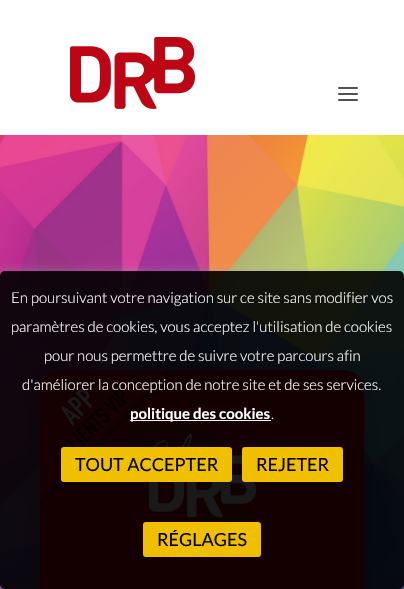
void draw(SkCanvas* canvas) {
  SkPaint paint;
  paint.setAntiAlias(true);
  auto face = [&](const char* family, int weight, float size, bool italic = false) {
    SkFontStyle style(weight, SkFontStyle::kNormal_Width,
      italic ? SkFontStyle::kItalic_Slant : SkFontStyle::kUpright_Slant);
    SkFont result(fontMgr->matchFamilyStyle(family, style), size);
    result.setSubpixel(true);
    return result;
  };
  auto paste = [&](const char* path, float x, float y, float w, float h) {
    auto image = SkImages::DeferredFromEncodedData(SkData::MakeFromFileName(path));
    canvas->drawImageRect(image, SkRect::MakeXYWH(x, y, w, h), SkSamplingOptions());
  };
  auto shape = [&](const char* data, bool evenOdd = false) {
    SkPath result = *SkParsePath::FromSVGString(data);
    if (evenOdd) result.setFillType(SkPathFillType::kEvenOdd);
    return result;
  };
  canvas->clear(0xffffffff);
  paste("img/1.png", 70, 37, 125, 72);
  paste("img/2.png", 338, 87, 20, 14);
  paste("img/3.png", 0, 135, 404, 454);
  paint.setColor(0x33000000);
  paint.setMaskFilter(SkMaskFilter::MakeBlur(kNormal_SkBlurStyle, 15));
  canvas->drawRoundRect(SkRect::MakeXYWH(45, 375, 324, 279), 20, 20, paint);
  paint.setMaskFilter(nullptr);
  paint.setColor(0xffd10004);
  canvas->drawRoundRect(SkRect::MakeXYWH(40, 370, 324, 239), 20, 20, paint);
  paste("img/4.png", 40, 370, 136, 136);
  paste("img/5.png", 127, 407, 150, 149);
  canvas->save();
  canvas->clipPath(shape("M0 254H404V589H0ZM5 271H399C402 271 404 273 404 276V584C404 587 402 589 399 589H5C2 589 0 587 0 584V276C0 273 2 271 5 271Z", true), true);
  paint.setColor(0x4dacabab);
  paint.setMaskFilter(SkMaskFilter::MakeBlur(kNormal_SkBlurStyle, 5));
  canvas->drawRoundRect(SkRect::MakeXYWH(0, 270, 404, 318), 5, 5, paint);
  paint.setMaskFilter(nullptr);
  canvas->restore();
  paint.setColor(0xe6000000);
  canvas->drawRoundRect(SkRect::MakeXYWH(0, 271, 404, 318), 5, 5, paint);
  paint.setColor(0xffffffff);
  canvas->drawRect(SkRect::MakeXYWH(130, 420, 141, 1), paint);
  paint.setColor(0xffefbf00);
  canvas->drawRoundRect(SkRect::MakeXYWH(61, 447, 171, 35), 3, 3, paint);
  canvas->drawRoundRect(SkRect::MakeXYWH(242, 447, 101, 35), 3, 3, paint);
  canvas->drawRoundRect(SkRect::MakeXYWH(143, 522, 118, 35), 3, 3, paint);
  auto f0 = face("Lato", 300, 15);
  paint.setColor(0xffffffff);
  {
    const struct { const char* s; float x, y; } items[] = {
      {"En poursuivant votre navigation sur ce site sans modifier vos", 11, 303},
      {"paramètres de cookies, vous acceptez l'utilisation de cookies", 11, 332},
      {"pour nous permettre de suivre votre parcours afin", 44, 361},
      {"d'améliorer la conception de notre site et de ses services.", 22, 390},
    };
    for (auto [s, x, y] : items) {
      canvas->drawString(s, x, y, f0, paint);
    }
  }
  auto f1 = face("Lato", 700, 15);
  canvas->drawString("politique des cookies", 130, 419, f1, paint);
  canvas->drawString(".", 271, 419, f0, paint);
  auto f2 = face("Lato", 400, 18);
  paint.setColor(0xff000000);
  {
    const struct { const char* s; float x, y; } items[] = {
      {"TOUT ACCEPTER", 75, 471},
      {"REJETER", 256, 471},
      {"RÉGLAGES", 157, 546},
    };
    for (auto [s, x, y] : items) {
      canvas->drawString(s, x, y, f2, paint);
    }
  }
}
